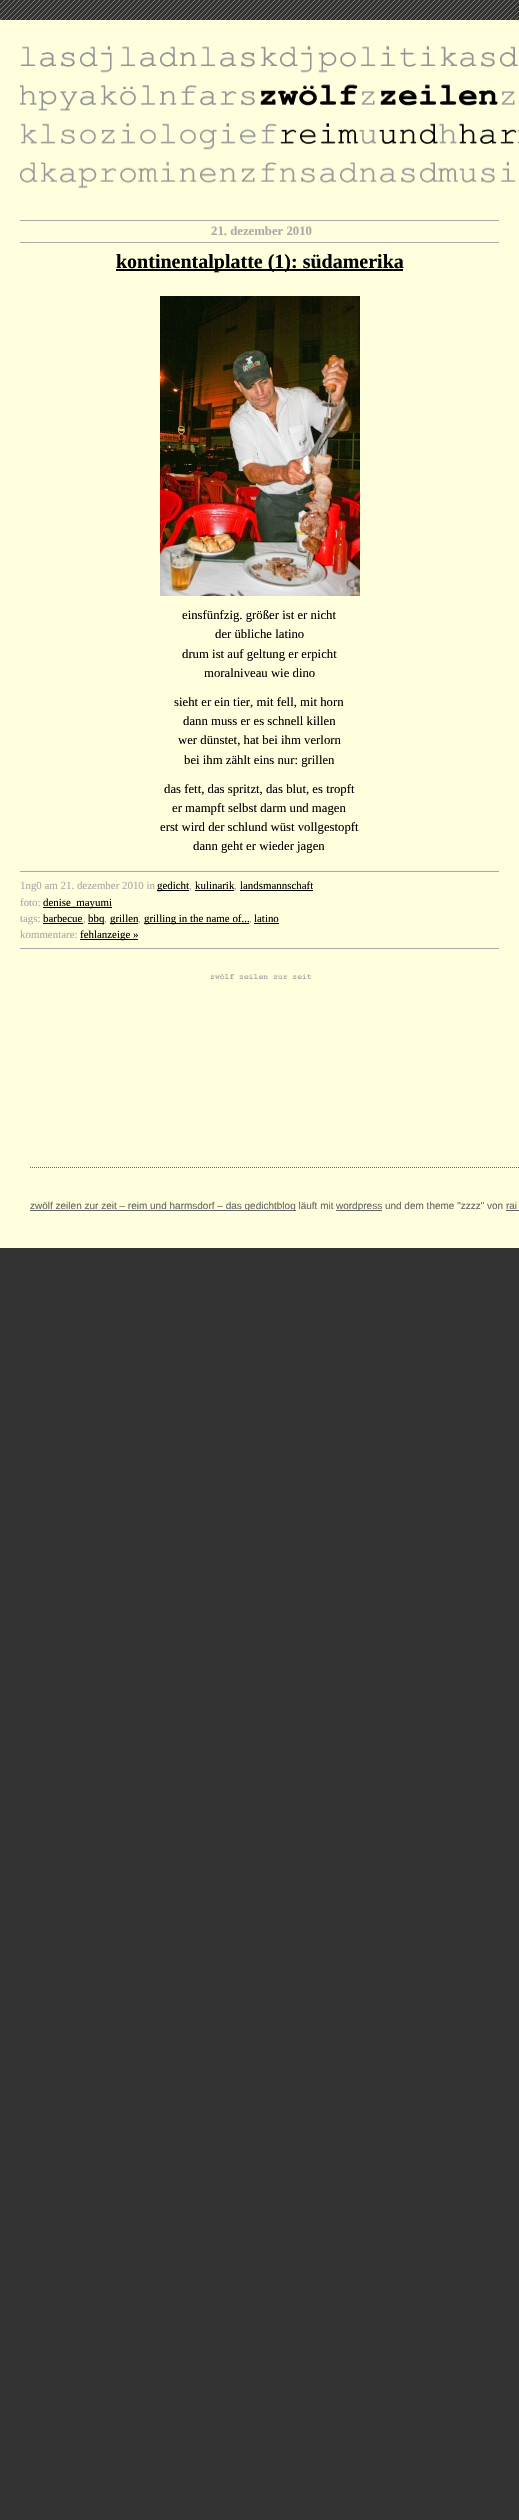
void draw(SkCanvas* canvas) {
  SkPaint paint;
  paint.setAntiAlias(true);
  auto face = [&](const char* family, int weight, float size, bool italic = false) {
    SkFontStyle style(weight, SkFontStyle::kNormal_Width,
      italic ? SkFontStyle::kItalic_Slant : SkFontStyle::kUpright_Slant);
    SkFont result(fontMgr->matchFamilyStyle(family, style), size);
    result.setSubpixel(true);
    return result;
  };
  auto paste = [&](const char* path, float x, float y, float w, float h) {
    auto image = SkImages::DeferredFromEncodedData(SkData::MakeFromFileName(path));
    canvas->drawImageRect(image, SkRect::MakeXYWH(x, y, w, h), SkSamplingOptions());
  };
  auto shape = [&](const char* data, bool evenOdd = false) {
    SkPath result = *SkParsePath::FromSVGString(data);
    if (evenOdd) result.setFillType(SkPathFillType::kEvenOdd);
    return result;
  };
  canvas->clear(0xff333333);
  paste("img/1.png", 0, 0, 519, 20);
  paint.setColor(0xffffffdd);
  canvas->drawRect(SkRect::MakeXYWH(0, 20, 519, 1228), paint);
  paste("img/2.png", 20, 45, 499, 144);
  {
    const struct { float x, y, w, h; SkColor color; } items[] = {
      {20, 220, 479, 1, 0xffaaaaaa},
      {20, 242, 479, 1, 0xffaaaaaa},
      {116, 269, 287, 2, 0xff000000},
    };
    for (auto [x, y, w, h, color] : items) {
      paint.setColor(color);
      canvas->drawRect(SkRect::MakeXYWH(x, y, w, h), paint);
    }
  }
  paste("img/3.png", 160, 296, 200, 300);
  {
    const struct { float x, y, w, h; SkColor color; } items[] = {
      {20, 871, 479, 1, 0xffaaaaaa},
      {20, 948, 479, 1, 0xffaaaaaa},
      {157, 890, 32, 1, 0xff000000},
      {195, 890, 39, 1, 0xff000000},
      {240, 890, 73, 1, 0xff000000},
      {43, 907, 69, 1, 0xff000000},
      {43, 923, 40, 1, 0xff000000},
      {88, 923, 16, 1, 0xff000000},
      {110, 923, 28, 1, 0xff000000},
      {144, 923, 105, 1, 0xff000000},
      {254, 923, 25, 1, 0xff000000},
      {80, 939, 58, 1, 0xff000000},
    };
    for (auto [x, y, w, h, color] : items) {
      paint.setColor(color);
      canvas->drawRect(SkRect::MakeXYWH(x, y, w, h), paint);
    }
  }
  paste("img/4.png", 210, 974, 102, 5);
  paint.setStroke(true);
  paint.setStrokeWidth(1);
  paint.setColor(0xff666666);
  paint.setPathEffect(SkDashPathEffect::Make({{1, 1}}, 0));
  canvas->drawPath(shape("M30 1167.5H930"), paint);
  paint.setPathEffect(nullptr);
  paint.setStroke(false);
  {
    const struct { float x, y, w, h; SkColor color; } items[] = {
      {30, 1210, 266, 1, 0xff666666},
      {336, 1210, 46, 1, 0xff666666},
      {506, 1210, 13, 1, 0xff666666},
    };
    for (auto [x, y, w, h, color] : items) {
      paint.setColor(color);
      canvas->drawRect(SkRect::MakeXYWH(x, y, w, h), paint);
    }
  }
  auto f0 = face("Liberation Serif", 700, 12.75f);
  paint.setColor(0xffaaaaaa);
  canvas->drawString("21. dezember 2010", 211, 235, f0, paint);
  auto f1 = face("Liberation Serif", 700, 20);
  paint.setColor(0xff000000);
  canvas->drawString("kontinentalplatte (1): südamerika", 116, 268, f1, paint);
  auto f2 = face("Liberation Serif", 400, 12.75f);
  {
    const struct { const char* s; float x, y; } items[] = {
      {"einsfünfzig. größer ist er nicht", 182, 619},
      {"der übliche latino", 215, 638},
      {"drum ist auf geltung er erpicht", 182, 658},
      {"moralniveau wie dino", 204, 677},
      {"sieht er ein tier, mit fell, mit horn", 174, 706},
      {"dann muss er es schnell killen", 183, 725},
      {"wer dünstet, hat bei ihm verlorn", 178, 744},
      {"bei ihm zählt eins nur: grillen", 184, 764},
      {"das fett, das spritzt, das blut, es tropft", 164, 793},
      {"er mampft selbst darm und magen", 172, 812},
      {"erst wird der schlund wüst vollgestopft", 160, 831},
      {"dann geht er wieder jagen", 193, 850},
    };
    for (auto [s, x, y] : items) {
      canvas->drawString(s, x, y, f2, paint);
    }
  }
  auto f3 = face("Liberation Serif", 400, 10.9f);
  paint.setColor(0xffaaaaaa);
  canvas->drawString("1ng0 am 21. dezember 2010 in", 20, 889, f3, paint);
  paint.setColor(0xff000000);
  canvas->drawString("gedicht", 157, 889, f3, paint);
  paint.setColor(0xffaaaaaa);
  canvas->drawString(",", 189, 889, f3, paint);
  paint.setColor(0xff000000);
  canvas->drawString("kulinarik", 195, 889, f3, paint);
  paint.setColor(0xffaaaaaa);
  canvas->drawString(",", 234, 889, f3, paint);
  paint.setColor(0xff000000);
  canvas->drawString("landsmannschaft", 240, 889, f3, paint);
  paint.setColor(0xffaaaaaa);
  canvas->drawString("foto:", 20, 906, f3, paint);
  paint.setColor(0xff000000);
  canvas->drawString("denise_mayumi", 43, 906, f3, paint);
  paint.setColor(0xffaaaaaa);
  canvas->drawString("tags:", 20, 922, f3, paint);
  paint.setColor(0xff000000);
  canvas->drawString("barbecue", 43, 922, f3, paint);
  paint.setColor(0xffaaaaaa);
  canvas->drawString(",", 83, 922, f3, paint);
  paint.setColor(0xff000000);
  canvas->drawString("bbq", 88, 922, f3, paint);
  paint.setColor(0xffaaaaaa);
  canvas->drawString(",", 104, 922, f3, paint);
  paint.setColor(0xff000000);
  canvas->drawString("grillen", 110, 922, f3, paint);
  paint.setColor(0xffaaaaaa);
  canvas->drawString(",", 138, 922, f3, paint);
  paint.setColor(0xff000000);
  canvas->drawString("grilling in the name of...", 144, 922, f3, paint);
  paint.setColor(0xffaaaaaa);
  canvas->drawString(",", 249, 922, f3, paint);
  paint.setColor(0xff000000);
  canvas->drawString("latino", 254, 922, f3, paint);
  paint.setColor(0xffaaaaaa);
  canvas->drawString("kommentare:", 20, 938, f3, paint);
  paint.setColor(0xff000000);
  canvas->drawString("fehlanzeige »", 80, 938, f3, paint);
  auto f4 = face("Liberation Sans", 400, 10);
  paint.setColor(0xff666666);
  canvas->drawString("zwölf zeilen zur zeit – reim und harmsdorf – das gedichtblog läuft mit", 30, 1209, f4, paint);
  canvas->drawString("wordpress und dem theme \"zzzz\" von rai", 336, 1209, f4, paint);
}
